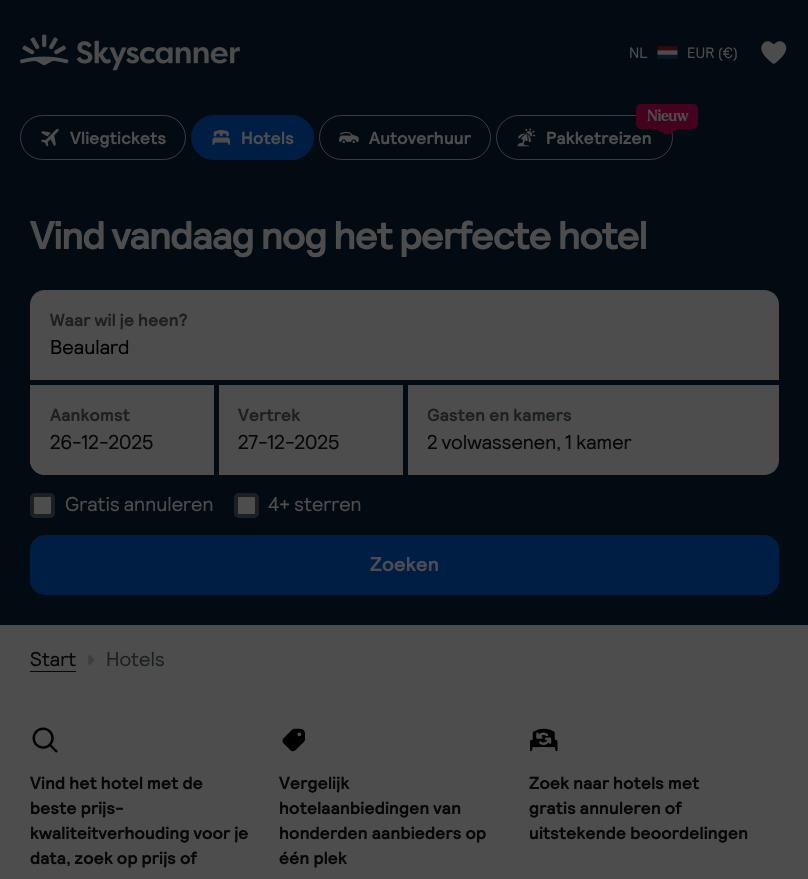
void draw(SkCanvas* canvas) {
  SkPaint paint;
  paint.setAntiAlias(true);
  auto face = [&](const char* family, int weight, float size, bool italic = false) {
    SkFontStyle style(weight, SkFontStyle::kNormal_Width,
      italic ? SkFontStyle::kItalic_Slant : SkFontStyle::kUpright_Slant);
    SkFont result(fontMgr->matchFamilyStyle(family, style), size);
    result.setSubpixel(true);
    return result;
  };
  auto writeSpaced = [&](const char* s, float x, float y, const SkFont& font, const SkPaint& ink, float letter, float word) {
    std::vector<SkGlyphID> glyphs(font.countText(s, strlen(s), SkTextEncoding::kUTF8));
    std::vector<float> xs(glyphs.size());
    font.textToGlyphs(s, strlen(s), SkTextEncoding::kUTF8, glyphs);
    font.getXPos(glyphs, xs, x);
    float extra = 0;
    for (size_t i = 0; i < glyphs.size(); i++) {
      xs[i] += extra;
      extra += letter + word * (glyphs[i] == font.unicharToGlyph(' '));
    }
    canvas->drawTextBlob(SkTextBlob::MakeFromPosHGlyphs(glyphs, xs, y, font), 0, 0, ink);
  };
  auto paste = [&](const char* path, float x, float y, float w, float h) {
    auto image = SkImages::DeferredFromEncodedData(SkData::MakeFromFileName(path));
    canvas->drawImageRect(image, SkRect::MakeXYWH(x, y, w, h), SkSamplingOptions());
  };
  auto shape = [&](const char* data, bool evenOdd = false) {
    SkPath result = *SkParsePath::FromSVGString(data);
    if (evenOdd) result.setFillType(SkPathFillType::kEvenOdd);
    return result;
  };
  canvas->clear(0xff4d4d4d);
  paint.setColor(0xff020a12);
  canvas->drawRect(SkRect::MakeXYWH(0, 0, 808, 625), paint);
  paste("img/1.png", 20, 34, 220, 37);
  paste("img/2.png", 657, 46, 21, 13);
  paste("img/3.png", 761, 41, 26, 23);
  paint.setStroke(true);
  paint.setStrokeWidth(1);
  paint.setColor(0xff3a3c3e);
  canvas->drawRoundRect(SkRect::MakeXYWH(20.5f, 115.5f, 165, 44), 22, 22, paint);
  paste("img/4.png", 41, 128, 18, 19);
  paint.setStroke(false);
  paint.setColor(0xff001d44);
  canvas->drawRoundRect(SkRect::MakeXYWH(191.5f, 115.5f, 122, 44), 22, 22, paint);
  paint.setStroke(true);
  canvas->drawRoundRect(SkRect::MakeXYWH(191.5f, 115.5f, 122, 44), 22, 22, paint);
  paste("img/5.png", 212, 130, 18, 15);
  paint.setColor(0xff3a3c3e);
  canvas->drawRoundRect(SkRect::MakeXYWH(319.5f, 115.5f, 171, 44), 22, 22, paint);
  paste("img/6.png", 339, 131, 20, 13);
  canvas->drawRoundRect(SkRect::MakeXYWH(496.5f, 115.5f, 176, 44), 22, 22, paint);
  paint.setStroke(false);
  paint.setColor(0xff45021f);
  canvas->drawRoundRect(SkRect::MakeXYWH(636, 104, 62, 25), 5, 5, paint);
  paste("img/7.png", 655, 129, 24, 6);
  paste("img/8.png", 517, 128, 19, 19);
  paint.setColor(0xff4d4d4d);
  canvas->drawPath(shape("M45 290H764C772.5 290 779 296.5 779 305V380H30V305C30 296.5 36.5 290 45 290Z"), paint);
  canvas->drawPath(shape("M30 385H214V475H45C36.5 475 30 468.5 30 460Z"), paint);
  canvas->drawRoundRect(SkRect::MakeXYWH(30, 385, 184, 90), 15, 15, paint);
  canvas->drawRect(SkRect::MakeXYWH(219, 385, 184, 90), paint);
  canvas->drawPath(shape("M408 385H779V460C779 468.5 772.5 475 764 475H408Z"), paint);
  canvas->drawRoundRect(SkRect::MakeXYWH(32, 495, 21, 21), 3, 3, paint);
  paint.setStroke(true);
  paint.setStrokeWidth(4);
  paint.setColor(0xff1d2022);
  canvas->drawRoundRect(SkRect::MakeXYWH(32, 495, 21, 21), 3, 3, paint);
  paint.setStroke(false);
  paint.setColor(0xff4d4d4d);
  canvas->drawRoundRect(SkRect::MakeXYWH(236, 495, 21, 21), 3, 3, paint);
  paint.setStroke(true);
  paint.setColor(0xff1d2022);
  canvas->drawRoundRect(SkRect::MakeXYWH(236, 495, 21, 21), 3, 3, paint);
  paint.setStroke(false);
  paint.setColor(0xff001d44);
  canvas->drawRoundRect(SkRect::MakeXYWH(30, 535, 749, 60), 15, 15, paint);
  paint.setColor(0xff070707);
  canvas->drawRect(SkRect::MakeXYWH(30, 671, 46, 1), paint);
  paste("img/9.png", 88, 655, 7, 10);
  paste("img/10.png", 32, 727, 26, 26);
  paste("img/11.png", 282, 728, 23, 24);
  paste("img/12.png", 530, 728, 28, 24);
  auto f0 = face("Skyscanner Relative", 400, 15);
  paint.setColor(0xff4d4d4d);
  canvas->drawString("NL", 629, 58, f0, paint);
  canvas->drawString("EUR (€)", 687, 58, f0, paint);
  auto f1 = face("Skyscanner Relative", 700, 17.5f);
  {
    const struct { const char* s; float x, y; } items[] = {
      {"Vliegtickets", 70, 144},
      {"Hotels", 241, 144},
      {"Autoverhuur", 369, 144},
    };
    for (auto [s, x, y] : items) {
      canvas->drawString(s, x, y, f1, paint);
    }
  }
  auto f2 = face("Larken", 700, 15);
  canvas->drawString("Nieuw", 647, 121, f2, paint);
  canvas->drawString("Pakketreizen", 546, 144, f1, paint);
  auto f3 = face("Skyscanner Relative", 700, 40);
  writeSpaced("Vind vandaag nog het perfecte hotel", 30, 249, f3, paint, -1.6f, 0);
  paint.setColor(0xff1d2022);
  canvas->drawString("Waar wil je heen?", 50, 326, f1, paint);
  auto f4 = face("Skyscanner Relative", 400, 20);
  paint.setColor(0xff000000);
  canvas->drawString("Beaulard", 50, 354, f4, paint);
  paint.setColor(0xff1d2022);
  canvas->drawString("Aankomst", 50, 421, f1, paint);
  paint.setColor(0xff070707);
  canvas->drawString("26-12-2025", 50, 449, f4, paint);
  paint.setColor(0xff1d2022);
  canvas->drawString("Vertrek", 238, 421, f1, paint);
  paint.setColor(0xff070707);
  canvas->drawString("27-12-2025", 238, 449, f4, paint);
  canvas->save();
  canvas->clipRect(SkRect::MakeXYWH(428, 403, 331, 25));
  paint.setColor(0xff1d2022);
  canvas->drawString("Gasten en kamers", 427, 421, f1, paint);
  canvas->restore();
  canvas->save();
  canvas->clipRect(SkRect::MakeXYWH(428, 428, 331, 30));
  paint.setColor(0xff070707);
  canvas->drawString("2 volwassenen, 1 kamer", 427, 449, f4, paint);
  canvas->restore();
  paint.setColor(0xff4d4d4d);
  canvas->drawString("Gratis annuleren", 65, 511, f4, paint);
  canvas->drawString("4+ sterren", 268, 511, f4, paint);
  auto f5 = face("Skyscanner Relative", 700, 20);
  canvas->drawString("Zoeken", 370, 571, f5, paint);
  paint.setColor(0xff070707);
  canvas->drawString("Start", 30, 666, f4, paint);
  paint.setColor(0xff1d2022);
  canvas->drawString("Hotels", 106, 666, f4, paint);
  paint.setColor(0xff070707);
  {
    const struct { const char* s; float x, y; } items[] = {
      {"Vind het hotel met de", 30, 789},
      {"beste prijs-", 30, 814},
      {"kwaliteitverhouding voor je", 30, 839},
      {"data, zoek op prijs of", 30, 864},
      {"Vergelijk", 279, 789},
      {"hotelaanbiedingen van", 279, 814},
      {"honderden aanbieders op", 279, 839},
      {"één plek", 279, 864},
      {"Zoek naar hotels met", 529, 789},
      {"gratis annuleren of", 529, 814},
      {"uitstekende beoordelingen", 529, 839},
    };
    for (auto [s, x, y] : items) {
      canvas->drawString(s, x, y, f1, paint);
    }
  }
}
